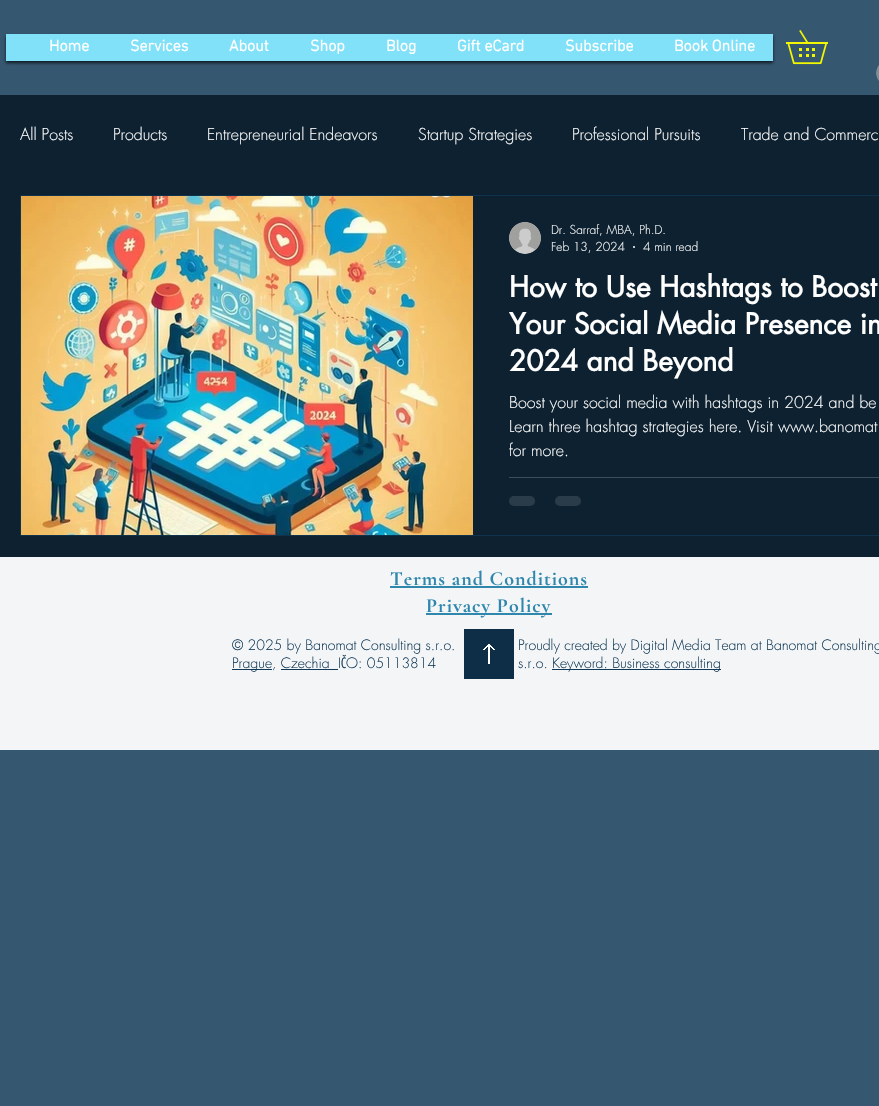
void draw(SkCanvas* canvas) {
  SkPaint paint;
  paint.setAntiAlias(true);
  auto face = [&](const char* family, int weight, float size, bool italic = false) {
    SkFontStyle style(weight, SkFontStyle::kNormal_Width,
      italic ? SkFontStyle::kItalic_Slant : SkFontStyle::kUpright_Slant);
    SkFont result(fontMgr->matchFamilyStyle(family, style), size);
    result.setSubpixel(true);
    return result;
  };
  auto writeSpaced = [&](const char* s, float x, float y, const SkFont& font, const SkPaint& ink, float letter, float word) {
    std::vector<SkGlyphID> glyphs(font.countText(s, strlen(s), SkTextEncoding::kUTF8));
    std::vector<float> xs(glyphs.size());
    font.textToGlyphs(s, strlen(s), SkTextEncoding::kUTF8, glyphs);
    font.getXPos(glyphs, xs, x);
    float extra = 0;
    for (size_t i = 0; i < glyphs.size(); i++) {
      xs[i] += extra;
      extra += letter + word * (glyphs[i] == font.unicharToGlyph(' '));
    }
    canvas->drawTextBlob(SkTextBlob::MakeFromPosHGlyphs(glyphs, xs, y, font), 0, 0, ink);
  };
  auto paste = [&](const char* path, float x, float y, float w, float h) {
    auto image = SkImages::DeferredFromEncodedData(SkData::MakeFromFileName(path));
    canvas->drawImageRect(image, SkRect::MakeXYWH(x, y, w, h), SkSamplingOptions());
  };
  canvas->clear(0xff355770);
  paint.setColor(0xb3000000);
  paint.setMaskFilter(SkMaskFilter::MakeBlur(kNormal_SkBlurStyle, 1.5f));
  canvas->drawRect(SkRect::MakeXYWH(6, 36, 767, 27), paint);
  paint.setMaskFilter(nullptr);
  paint.setColor(0xff80e1f9);
  canvas->drawRect(SkRect::MakeXYWH(6, 34, 767, 27), paint);
  paste("img/1.png", 786, 30, 42, 35);
  paste("img/2.png", 876, 65, 3, 16);
  paint.setColor(0xff0d2130);
  canvas->drawRect(SkRect::MakeXYWH(0, 95, 879, 462), paint);
  paint.setStroke(true);
  paint.setStrokeWidth(1);
  paint.setColor(0xff10334d);
  canvas->drawRect(SkRect::MakeXYWH(20.5f, 195.5f, 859, 340), paint);
  paste("img/3.png", 21, 196, 452, 339);
  paste("img/4.png", 509, 222, 32, 32);
  paint.setStroke(false);
  paint.setColor(0xffffffff);
  canvas->drawCircle(634, 247, 1, paint);
  paint.setColor(0xff3d4d59);
  canvas->drawRect(SkRect::MakeXYWH(509, 477, 370, 1), paint);
  paint.setColor(0xff2a3c49);
  canvas->drawRoundRect(SkRect::MakeXYWH(509, 496, 26, 10), 5, 5, paint);
  canvas->drawRoundRect(SkRect::MakeXYWH(555, 496, 26, 10), 5, 5, paint);
  {
    const struct { float x, y, w, h; SkColor color; } items[] = {
      {0, 557, 879, 193, 0xfff3f5f6},
      {390, 586, 198, 2, 0xff2f87ad},
      {426, 613, 126, 2, 0xff2f87ad},
      {232, 669, 40, 1, 0xff113957},
      {281, 669, 57, 1, 0xff113957},
    };
    for (auto [x, y, w, h, color] : items) {
      paint.setColor(color);
      canvas->drawRect(SkRect::MakeXYWH(x, y, w, h), paint);
    }
  }
  paste("img/5.png", 464, 629, 50, 50);
  canvas->drawRect(SkRect::MakeXYWH(552, 669, 169, 1), paint);
  auto f0 = face("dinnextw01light", 700, 16);
  paint.setColor(0xffffffff);
  {
    const struct { const char* s; float x, y; } items[] = {
      {"Home", 49, 51},
      {"Services", 130, 51},
      {"About", 229, 51},
      {"Shop", 310, 51},
      {"Blog", 386, 51},
      {"Gift eCard", 457, 51},
      {"Subscribe", 565, 51},
      {"Book Online", 674, 51},
    };
    for (auto [s, x, y] : items) {
      canvas->drawString(s, x, y, f0, paint);
    }
  }
  auto f1 = face("futura", 300, 16);
  {
    const struct { const char* s; float x, y; } items[] = {
      {"All Posts", 20, 140},
      {"Products", 113, 140},
      {"Entrepreneurial Endeavors", 207, 140},
      {"Startup Strategies", 418, 140},
      {"Professional Pursuits", 572, 140},
      {"Trade and Commerc", 741, 140},
    };
    for (auto [s, x, y] : items) {
      canvas->drawString(s, x, y, f1, paint);
    }
  }
  auto f2 = face("futura", 300, 12);
  {
    const struct { const char* s; float x, y; } items[] = {
      {"Dr. Sarraf, MBA, Ph.D.", 551, 234},
      {"Feb 13, 2024", 551, 251},
      {"4 min read", 643, 251},
    };
    for (auto [s, x, y] : items) {
      canvas->drawString(s, x, y, f2, paint);
    }
  }
  auto f3 = face("futura", 700, 28);
  {
    const struct { const char* s; float x, y; } items[] = {
      {"How to Use Hashtags to Boost", 509, 297},
      {"Your Social Media Presence in", 509, 334},
      {"2024 and Beyond", 509, 371},
    };
    for (auto [s, x, y] : items) {
      canvas->drawString(s, x, y, f3, paint);
    }
  }
  {
    const struct { const char* s; float x, y; } items[] = {
      {"Boost your social media with hashtags in 2024 and be", 509, 408},
      {"Learn three hashtag strategies here. Visit www.banomat", 509, 432},
      {"for more.", 509, 456},
    };
    for (auto [s, x, y] : items) {
      canvas->drawString(s, x, y, f1, paint);
    }
  }
  auto f4 = face("Cormorant Garamond", 700, 20);
  paint.setColor(0xff2f87ad);
  writeSpaced("Terms and Conditions", 390, 585, f4, paint, 1, 0);
  writeSpaced("Privacy Policy", 426, 612, f4, paint, 1, 0);
  auto f5 = face("futura", 300, 14);
  paint.setColor(0xff113957);
  {
    const struct { const char* s; float x, y; } items[] = {
      {"© 2025 by Banomat Consulting s.r.o.", 232, 650},
      {"Prague, Czechia", 232, 668},
      {"IČO: 05113814", 338, 668},
      {"Proudly created by Digital Media Team at Banomat Consulting", 518, 650},
      {"s.r.o.", 518, 668},
      {"Keyword: Business consulting", 552, 668},
    };
    for (auto [s, x, y] : items) {
      canvas->drawString(s, x, y, f5, paint);
    }
  }
}
